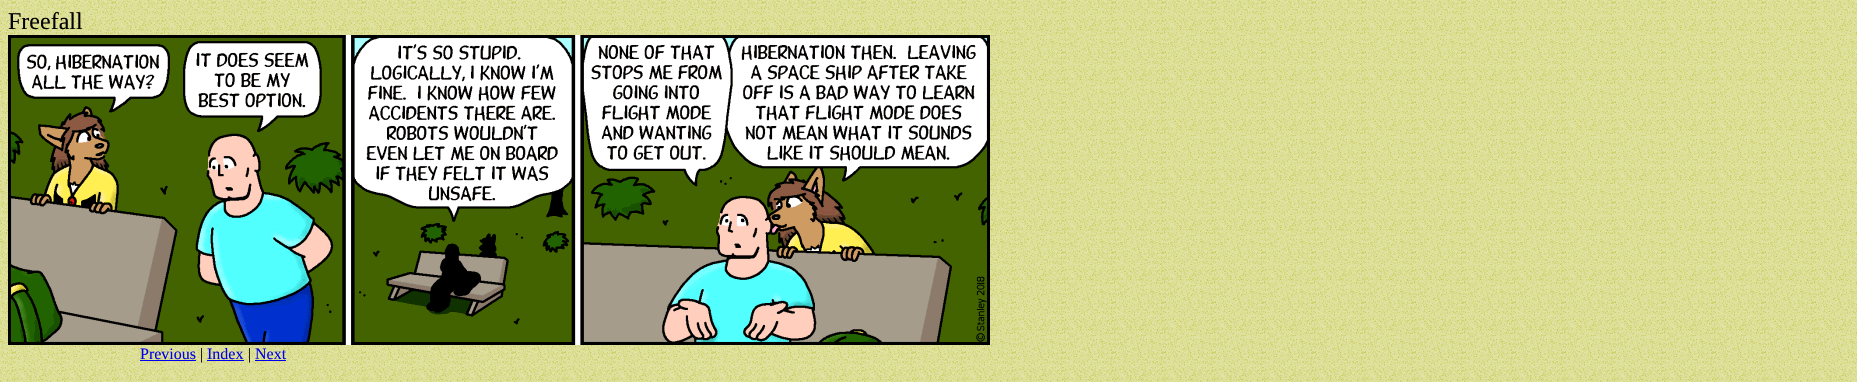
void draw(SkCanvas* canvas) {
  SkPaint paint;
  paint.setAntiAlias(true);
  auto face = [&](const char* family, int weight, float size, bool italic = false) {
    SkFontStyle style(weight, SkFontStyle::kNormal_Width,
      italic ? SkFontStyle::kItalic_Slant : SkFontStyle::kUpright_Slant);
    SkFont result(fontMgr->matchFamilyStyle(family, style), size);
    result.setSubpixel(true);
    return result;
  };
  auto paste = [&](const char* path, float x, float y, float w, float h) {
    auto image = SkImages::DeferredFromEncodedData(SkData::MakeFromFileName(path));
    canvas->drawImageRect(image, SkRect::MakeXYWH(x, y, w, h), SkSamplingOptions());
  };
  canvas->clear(0xffffffff);
  paste("img/1.png", 0, 0, 1857, 382);
  paste("img/2.png", 8, 35, 982, 310);
  {
    const struct { float x, y, w, h; SkColor color; } items[] = {
      {140, 360, 56, 1, 0xff0000ee},
      {207, 360, 37, 1, 0xff0000ee},
      {255, 360, 31, 1, 0xff0000ee},
    };
    for (auto [x, y, w, h, color] : items) {
      paint.setColor(color);
      canvas->drawRect(SkRect::MakeXYWH(x, y, w, h), paint);
    }
  }
  auto f0 = face("Liberation Serif", 400, 24);
  paint.setColor(0xff000000);
  canvas->drawString("Freefall", 8, 29, f0, paint);
  auto f1 = face("Liberation Serif", 400, 16);
  paint.setColor(0xff0000ee);
  canvas->drawString("Previous", 140, 359, f1, paint);
  paint.setColor(0xff000000);
  canvas->drawString("|", 200, 359, f1, paint);
  paint.setColor(0xff0000ee);
  canvas->drawString("Index", 207, 359, f1, paint);
  paint.setColor(0xff000000);
  canvas->drawString("|", 248, 359, f1, paint);
  paint.setColor(0xff0000ee);
  canvas->drawString("Next", 255, 359, f1, paint);
}
